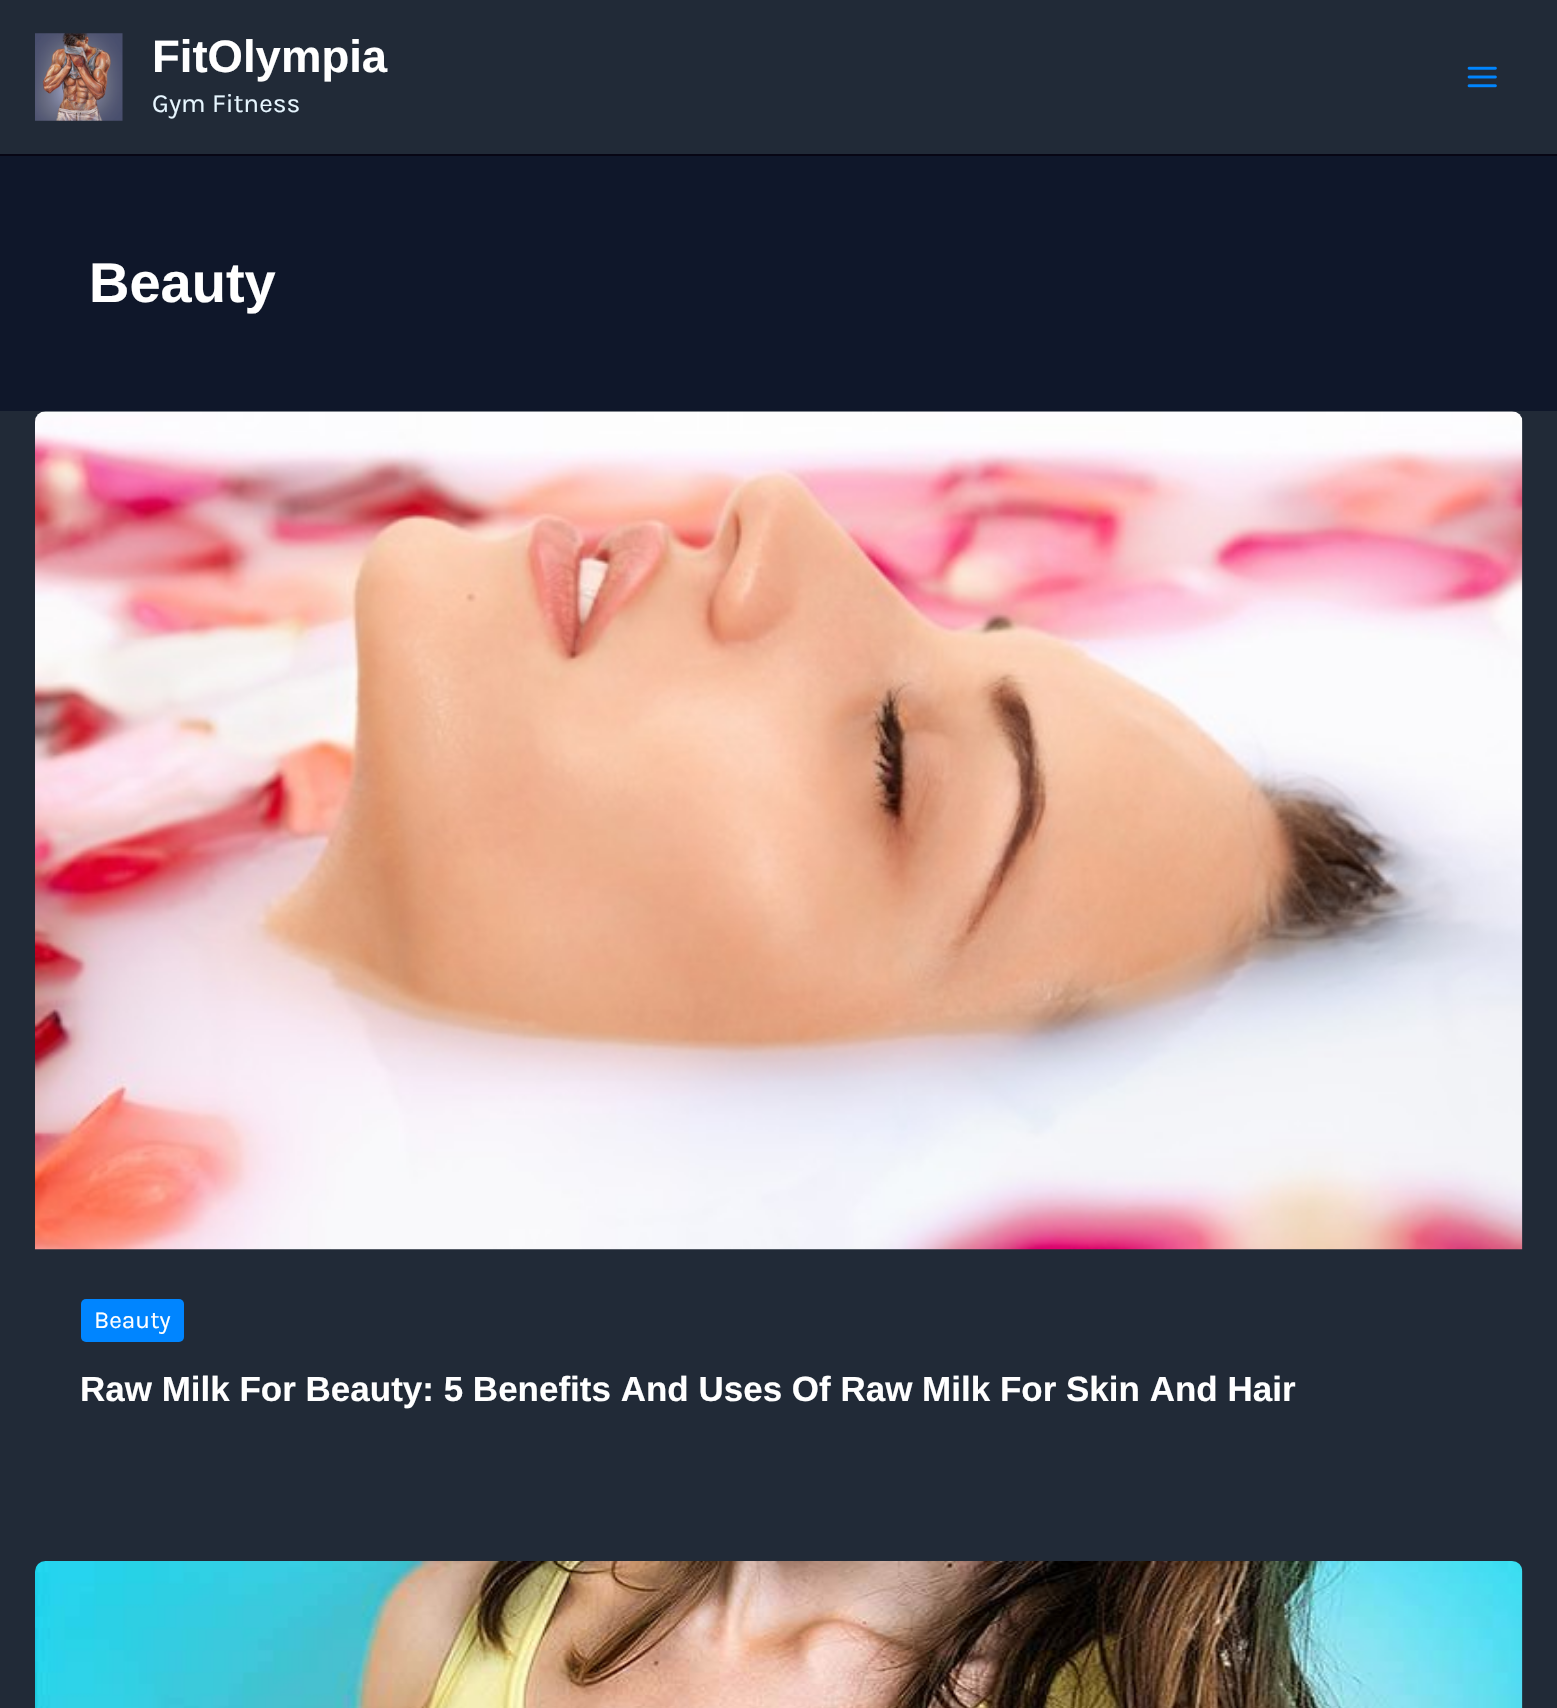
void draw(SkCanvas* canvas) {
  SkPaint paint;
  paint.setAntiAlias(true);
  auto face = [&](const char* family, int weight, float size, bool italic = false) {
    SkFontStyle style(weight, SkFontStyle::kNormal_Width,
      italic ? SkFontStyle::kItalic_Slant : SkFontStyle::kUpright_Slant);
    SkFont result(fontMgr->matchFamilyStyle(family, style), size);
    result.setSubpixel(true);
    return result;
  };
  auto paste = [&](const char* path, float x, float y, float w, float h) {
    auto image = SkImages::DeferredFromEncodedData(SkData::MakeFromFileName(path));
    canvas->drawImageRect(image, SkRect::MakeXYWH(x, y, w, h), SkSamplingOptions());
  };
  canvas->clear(0xff212a37);
  paint.setColor(0xff070614);
  canvas->drawRect(SkRect::MakeXYWH(0, 154, 1557, 2), paint);
  paste("img/1.png", 35, 33, 88, 88);
  paste("img/2.png", 1467, 66, 30, 22);
  paint.setColor(0xff0f172a);
  canvas->drawRect(SkRect::MakeXYWH(0, 156, 1557, 255), paint);
  paste("img/3.png", 35, 411, 1488, 839);
  paint.setColor(0xff0085ff);
  canvas->drawRoundRect(SkRect::MakeXYWH(81, 1299, 103, 43), 5, 5, paint);
  paste("img/4.png", 35, 1561, 1488, 147);
  auto f0 = face("Liberation Sans", 700, 45.5f);
  paint.setColor(0xffffffff);
  canvas->drawString("FitOlympia", 152, 72, f0, paint);
  auto f1 = face("Karla", 400, 26.25f);
  paint.setColor(0xffe7f6ff);
  canvas->drawString("Gym Fitness", 152, 112, f1, paint);
  auto f2 = face("Liberation Sans", 700, 56);
  paint.setColor(0xffffffff);
  canvas->drawString("Beauty", 89, 302, f2, paint);
  auto f3 = face("Karla", 400, 24.5f);
  canvas->drawString("Beauty", 94, 1328, f3, paint);
  auto f4 = face("Liberation Sans", 700, 35);
  canvas->drawString("Raw Milk For Beauty: 5 Benefits And Uses Of Raw Milk For Skin And Hair", 80, 1401, f4, paint);
}
